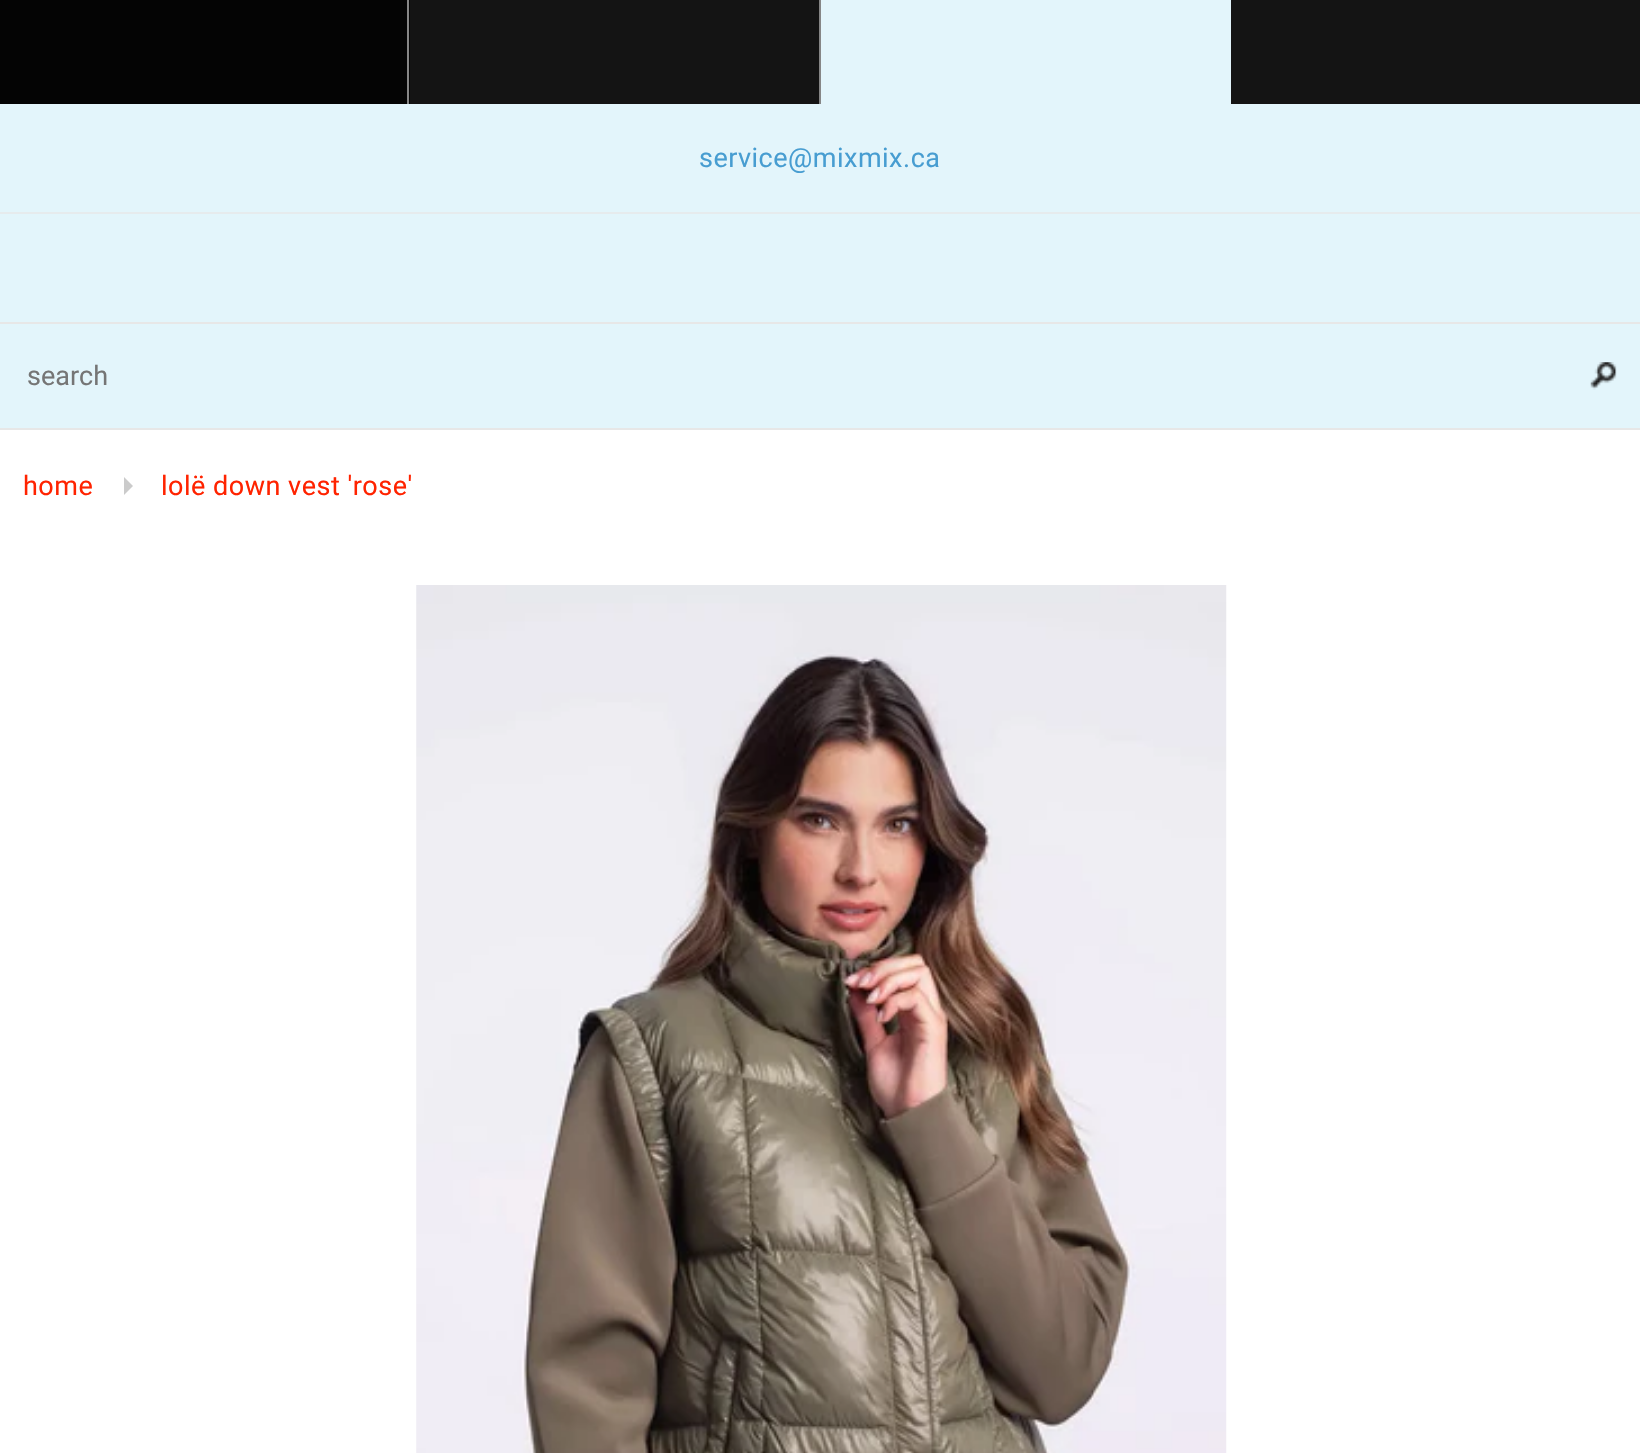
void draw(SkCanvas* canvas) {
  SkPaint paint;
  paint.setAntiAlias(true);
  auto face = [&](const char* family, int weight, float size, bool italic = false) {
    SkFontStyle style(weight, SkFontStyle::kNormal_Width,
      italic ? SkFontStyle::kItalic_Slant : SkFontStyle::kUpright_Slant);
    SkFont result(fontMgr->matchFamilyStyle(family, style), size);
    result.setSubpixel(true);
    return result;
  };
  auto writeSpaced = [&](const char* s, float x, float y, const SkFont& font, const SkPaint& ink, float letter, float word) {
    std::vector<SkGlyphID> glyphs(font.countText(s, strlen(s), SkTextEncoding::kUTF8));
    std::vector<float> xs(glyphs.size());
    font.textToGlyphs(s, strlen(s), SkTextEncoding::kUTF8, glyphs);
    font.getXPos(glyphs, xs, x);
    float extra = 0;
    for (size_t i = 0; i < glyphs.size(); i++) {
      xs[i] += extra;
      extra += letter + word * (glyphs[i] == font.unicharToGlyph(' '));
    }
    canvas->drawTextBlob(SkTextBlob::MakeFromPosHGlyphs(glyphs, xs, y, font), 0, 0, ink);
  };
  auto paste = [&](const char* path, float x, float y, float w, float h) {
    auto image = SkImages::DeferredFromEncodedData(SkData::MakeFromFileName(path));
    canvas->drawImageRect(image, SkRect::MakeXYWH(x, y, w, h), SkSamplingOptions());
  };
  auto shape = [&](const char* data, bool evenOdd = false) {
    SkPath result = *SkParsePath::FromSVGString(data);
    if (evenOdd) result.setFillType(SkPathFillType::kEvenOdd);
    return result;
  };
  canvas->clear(0xffffffff);
  {
    const struct { float x, y, w, h; SkColor color; } items[] = {
      {0, 0, 1640, 428, 0xffe3f5fb},
      {410, 0, 409, 104, 0xff141414},
      {0, 0, 410, 104, 0xff040404},
      {407, 0, 2, 104, 0xff868686},
      {819, 0, 2, 104, 0xff868686},
      {0, 212, 1640, 2, 0xffe6ebed},
      {1231, 0, 409, 104, 0xff141414},
      {0, 322, 1640, 2, 0xffe7e7e7},
      {0, 428, 1640, 2, 0xffe7e7e7},
    };
    for (auto [x, y, w, h, color] : items) {
      paint.setColor(color);
      canvas->drawRect(SkRect::MakeXYWH(x, y, w, h), paint);
    }
  }
  paste("img/1.png", 1590, 362, 27, 28);
  paint.setColor(0xffcbcbcb);
  canvas->drawPath(shape("M124 495V477L133 486Z"), paint);
  paste("img/2.png", 416, 585, 811, 868);
  auto f0 = face("Roboto", 400, 27);
  paint.setColor(0xff479dd1);
  writeSpaced("service@mixmix.ca", 699, 167, f0, paint, 0.5f, 0);
  paint.setColor(0xff757575);
  canvas->drawString("search", 27, 385, f0, paint);
  paint.setColor(0xffff2300);
  writeSpaced("home", 23, 495, f0, paint, 0.5f, 0);
  writeSpaced("lolë down vest 'rose'", 161, 495, f0, paint, 0.5f, 0);
}
